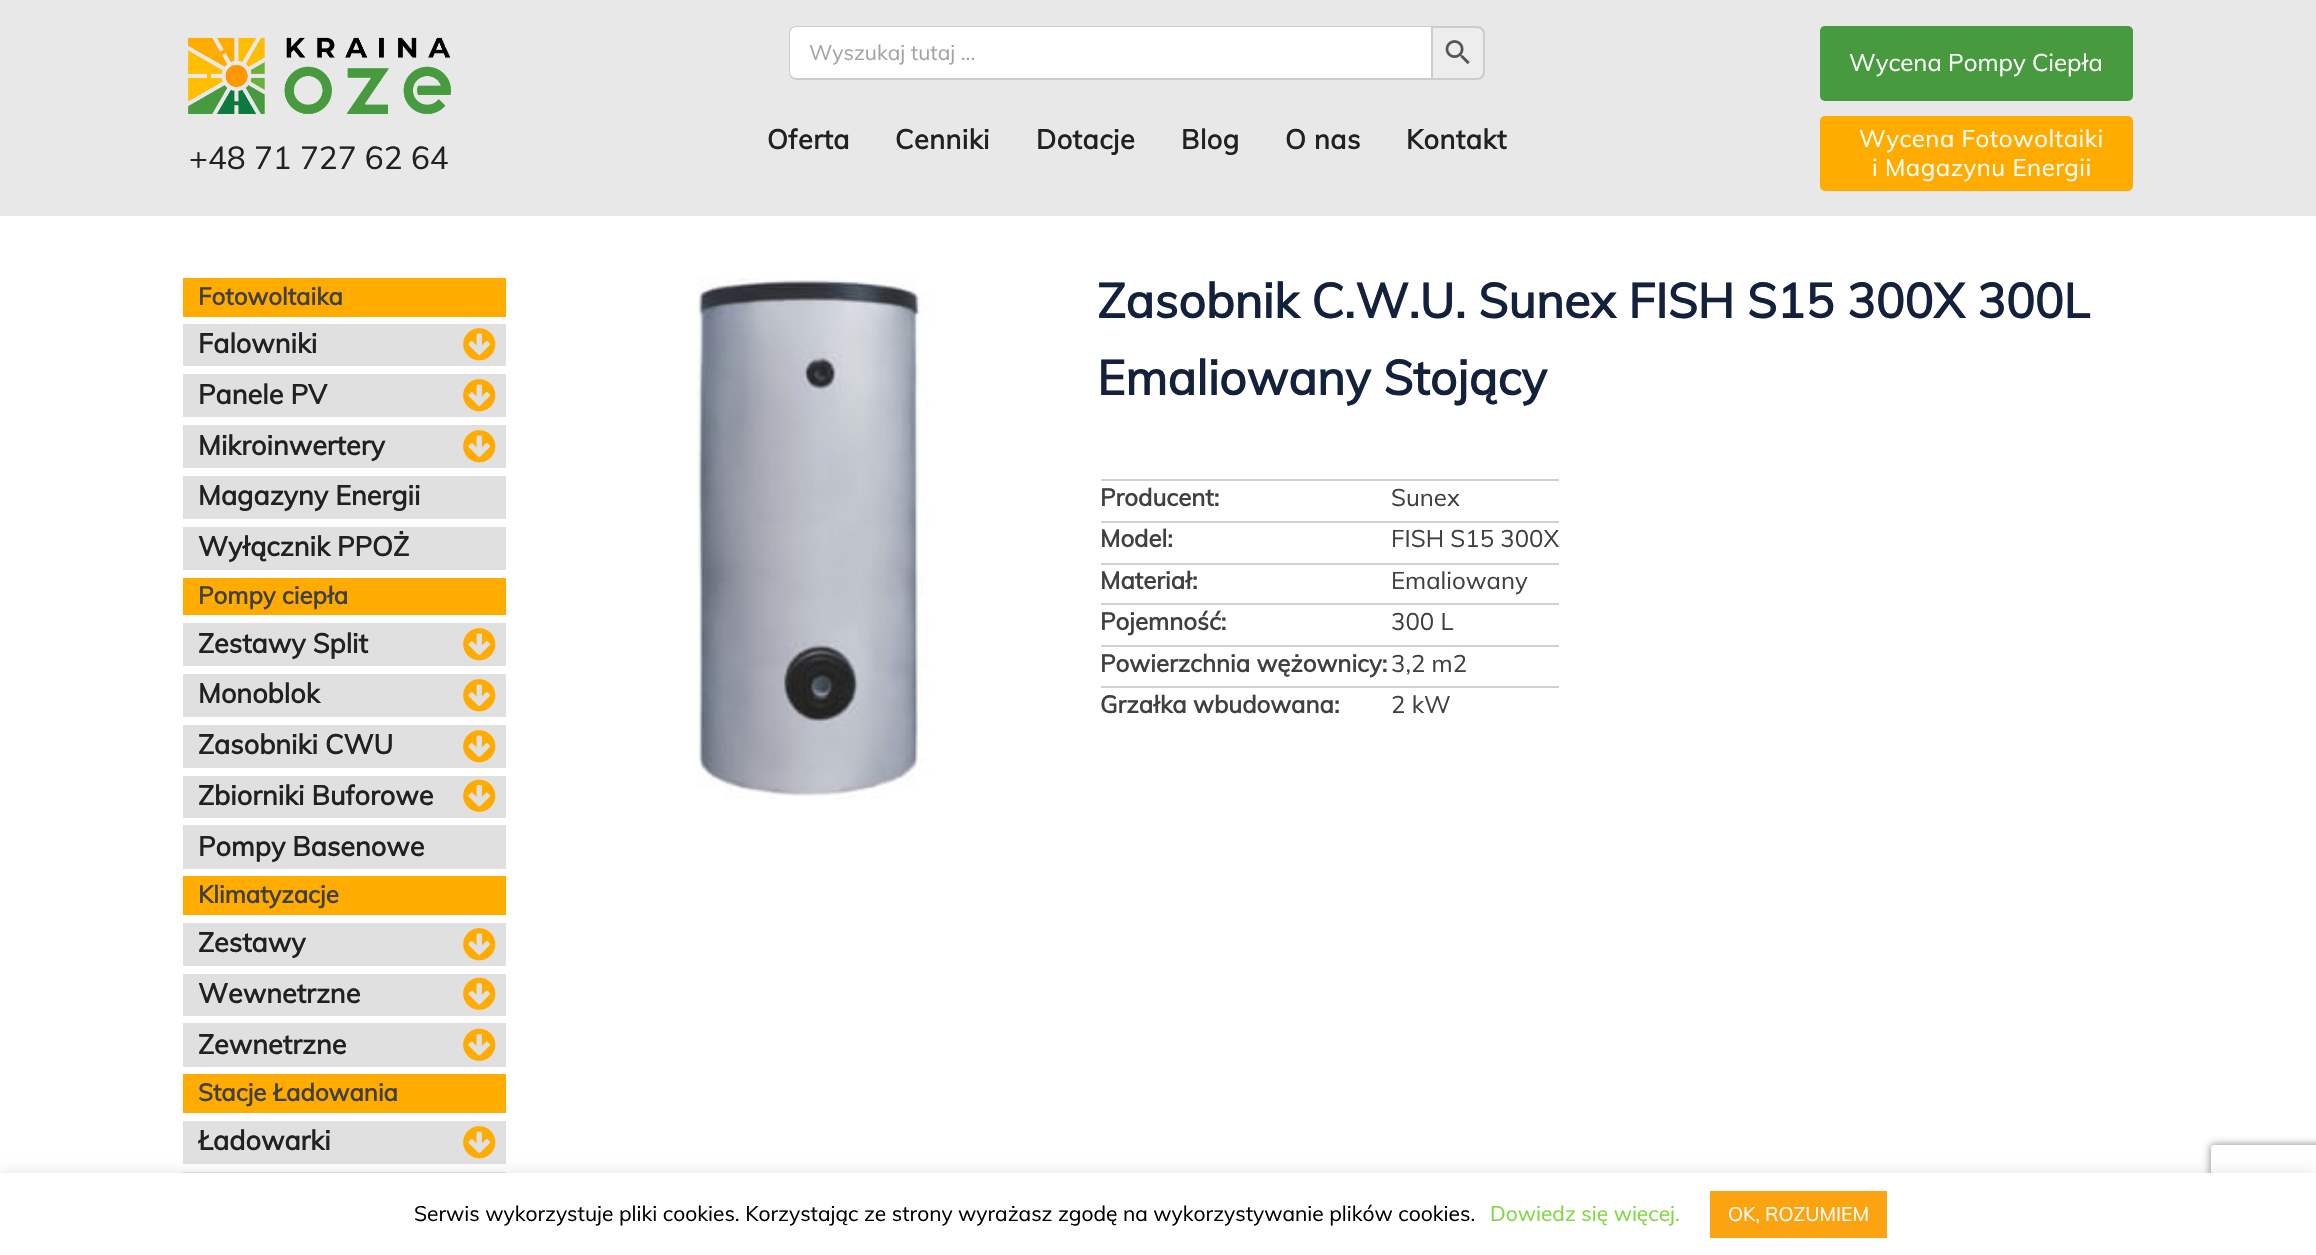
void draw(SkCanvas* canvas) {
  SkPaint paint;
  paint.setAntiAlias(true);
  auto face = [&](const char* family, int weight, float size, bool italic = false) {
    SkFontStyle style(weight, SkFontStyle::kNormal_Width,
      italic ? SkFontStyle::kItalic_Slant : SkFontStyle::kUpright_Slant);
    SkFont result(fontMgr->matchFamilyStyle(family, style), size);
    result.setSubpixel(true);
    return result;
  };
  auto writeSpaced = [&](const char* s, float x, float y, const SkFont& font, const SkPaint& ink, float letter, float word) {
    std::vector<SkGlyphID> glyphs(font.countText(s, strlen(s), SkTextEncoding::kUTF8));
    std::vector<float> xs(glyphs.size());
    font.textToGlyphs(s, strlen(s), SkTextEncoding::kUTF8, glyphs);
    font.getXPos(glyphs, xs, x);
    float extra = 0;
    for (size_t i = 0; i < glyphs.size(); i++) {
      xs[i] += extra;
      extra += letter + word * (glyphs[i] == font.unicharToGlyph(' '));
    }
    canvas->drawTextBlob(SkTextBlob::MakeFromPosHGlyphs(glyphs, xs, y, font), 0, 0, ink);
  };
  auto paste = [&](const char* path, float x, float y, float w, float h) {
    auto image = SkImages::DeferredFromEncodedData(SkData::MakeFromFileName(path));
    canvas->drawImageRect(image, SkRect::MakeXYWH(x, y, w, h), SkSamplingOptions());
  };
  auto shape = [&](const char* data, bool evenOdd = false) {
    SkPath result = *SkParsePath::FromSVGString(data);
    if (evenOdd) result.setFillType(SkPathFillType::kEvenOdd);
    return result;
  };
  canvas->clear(0xffffffff);
  paint.setColor(0xffe8e8e8);
  canvas->drawRect(SkRect::MakeXYWH(0, 0, 2316, 216), paint);
  paste("img/1.png", 188, 37, 263, 77);
  paint.setColor(0xffffffff);
  canvas->drawPath(shape("M797 26H1431V80H797C792.5 80 789 76.5 789 72V34C789 29.5 792.5 26 797 26Z"), paint);
  paint.setColor(0xffcccccc);
  canvas->drawPath(shape("M796 26H1431V80H796C792 80 789 76 789 72V33C789 29 792 26 796 26ZM796 27H1431V78H796C793 78 790 75 790 72V33C790 30 793 27 796 27Z", true), paint);
  paint.setColor(0xffededed);
  canvas->drawPath(shape("M1432 27H1477C1481 27 1484 30 1484 34V72C1484 76 1481 79 1477 79H1432Z"), paint);
  paint.setStroke(true);
  paint.setStrokeWidth(2);
  paint.setColor(0xffcccccc);
  canvas->drawPath(shape("M1432 27H1477C1481 27 1484 30 1484 34V72C1484 76 1481 79 1477 79H1432Z"), paint);
  paste("img/2.png", 1445, 40, 25, 25);
  paint.setStroke(false);
  paint.setColor(0xff479a3d);
  canvas->drawRoundRect(SkRect::MakeXYWH(1820, 26, 313, 75), 5, 5, paint);
  paint.setColor(0xffffab00);
  canvas->drawRoundRect(SkRect::MakeXYWH(1820, 116, 313, 75), 5, 5, paint);
  canvas->drawRect(SkRect::MakeXYWH(183, 278, 323, 39), paint);
  paint.setColor(0xffe0e0e0);
  canvas->drawRect(SkRect::MakeXYWH(183, 324, 323, 42), paint);
  paste("img/3.png", 463, 328, 33, 33);
  canvas->drawRect(SkRect::MakeXYWH(183, 374, 323, 43), paint);
  paste("img/3.png", 463, 379, 33, 33);
  canvas->drawRect(SkRect::MakeXYWH(183, 425, 323, 43), paint);
  paste("img/3.png", 463, 430, 33, 33);
  {
    const struct { float x, y, w, h; SkColor color; } items[] = {
      {183, 476, 323, 43, 0xffe0e0e0},
      {183, 527, 323, 43, 0xffe0e0e0},
      {183, 578, 323, 37, 0xffffab00},
      {183, 623, 323, 43, 0xffe0e0e0},
    };
    for (auto [x, y, w, h, color] : items) {
      paint.setColor(color);
      canvas->drawRect(SkRect::MakeXYWH(x, y, w, h), paint);
    }
  }
  paste("img/3.png", 463, 628, 33, 33);
  canvas->drawRect(SkRect::MakeXYWH(183, 674, 323, 43), paint);
  paste("img/3.png", 463, 679, 33, 33);
  canvas->drawRect(SkRect::MakeXYWH(183, 725, 323, 43), paint);
  paste("img/3.png", 463, 730, 33, 33);
  canvas->drawRect(SkRect::MakeXYWH(183, 776, 323, 42), paint);
  paste("img/4.png", 463, 779, 33, 33);
  {
    const struct { float x, y, w, h; SkColor color; } items[] = {
      {183, 825, 323, 44, 0xffe0e0e0},
      {183, 876, 323, 39, 0xffffab00},
      {183, 923, 323, 43, 0xffe0e0e0},
    };
    for (auto [x, y, w, h, color] : items) {
      paint.setColor(color);
      canvas->drawRect(SkRect::MakeXYWH(x, y, w, h), paint);
    }
  }
  paste("img/3.png", 463, 928, 33, 33);
  canvas->drawRect(SkRect::MakeXYWH(183, 974, 323, 42), paint);
  paste("img/4.png", 463, 977, 33, 33);
  canvas->drawRect(SkRect::MakeXYWH(183, 1023, 323, 44), paint);
  paste("img/4.png", 463, 1028, 33, 33);
  paint.setColor(0xffffab00);
  canvas->drawRect(SkRect::MakeXYWH(183, 1074, 323, 39), paint);
  paint.setColor(0xffe0e0e0);
  canvas->drawRect(SkRect::MakeXYWH(183, 1121, 323, 43), paint);
  paste("img/3.png", 463, 1126, 33, 33);
  canvas->drawRect(SkRect::MakeXYWH(183, 1172, 323, 1), paint);
  paste("img/5.png", 697, 277, 233, 523);
  {
    const struct { float x, y, w, h; SkColor color; } items[] = {
      {1101, 479, 458, 2, 0xffd3ced2},
      {1101, 521, 458, 2, 0xffd3ced2},
      {1101, 563, 458, 2, 0xffd3ced2},
      {1101, 603, 458, 2, 0xffd3ced2},
      {1101, 645, 458, 2, 0xffd3ced2},
      {1101, 686, 458, 2, 0xffd3ced2},
    };
    for (auto [x, y, w, h, color] : items) {
      paint.setColor(color);
      canvas->drawRect(SkRect::MakeXYWH(x, y, w, h), paint);
    }
  }
  paint.setColor(0x4dacabab);
  paint.setMaskFilter(SkMaskFilter::MakeBlur(kNormal_SkBlurStyle, 7.5f));
  canvas->drawRect(SkRect::MakeXYWH(0, 1172, 2316, 82), paint);
  paint.setMaskFilter(nullptr);
  canvas->save();
  canvas->clipPath(shape("M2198 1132H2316V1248H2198ZM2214 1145H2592C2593.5 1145 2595 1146.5 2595 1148V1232C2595 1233.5 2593.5 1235 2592 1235H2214C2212.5 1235 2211 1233.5 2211 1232V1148C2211 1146.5 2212.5 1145 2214 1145Z", true), true);
  paint.setColor(0xff808080);
  paint.setMaskFilter(SkMaskFilter::MakeBlur(kNormal_SkBlurStyle, 4));
  canvas->drawRoundRect(SkRect::MakeXYWH(2211, 1145, 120, 90), 3, 3, paint);
  paint.setMaskFilter(nullptr);
  canvas->restore();
  paint.setColor(0xffffffff);
  canvas->drawRect(SkRect::MakeXYWH(0, 1173, 2316, 82), paint);
  paint.setColor(0xfffca311);
  canvas->drawRect(SkRect::MakeXYWH(1710, 1191, 177, 47), paint);
  auto f0 = face("Muli", 400, 31.5f);
  paint.setColor(0xff212121);
  canvas->drawString("+48 71 727 62 64", 189, 169, f0, paint);
  auto f1 = face("Muli", 400, 21);
  paint.setColor(0xffa3a3a3);
  canvas->drawString("Wyszukaj tutaj ...", 809, 60, f1, paint);
  auto f2 = face("Muli", 700, 27);
  paint.setColor(0xff212121);
  {
    const struct { const char* s; float x, y; } items[] = {
      {"Oferta", 767, 149},
      {"Cenniki", 895, 149},
      {"Dotacje", 1036, 149},
      {"Blog", 1181, 149},
      {"O nas", 1285, 149},
      {"Kontakt", 1406, 149},
    };
    for (auto [s, x, y] : items) {
      writeSpaced(s, x, y, f2, paint, 0.5f, 0);
    }
  }
  auto f3 = face("Muli", 400, 24);
  paint.setColor(0xffffffff);
  canvas->drawString("Wycena Pompy Ciepła", 1849, 71, f3, paint);
  writeSpaced("Wycena Fotowoltaiki", 1859, 147, f3, paint, 0.5f, 0);
  writeSpaced("i Magazynu Energii", 1872, 176, f3, paint, 0.5f, 0);
  auto f4 = face("Muli", 700, 24);
  paint.setColor(0xff404040);
  canvas->drawString("Fotowoltaika", 198, 305, f4, paint);
  paint.setColor(0xff212121);
  {
    const struct { const char* s; float x, y; } items[] = {
      {"Falowniki", 198, 353},
      {"Panele PV", 198, 404},
      {"Mikroinwertery", 198, 455},
      {"Magazyny Energii", 198, 505},
      {"Wyłącznik PPOŻ", 198, 556},
    };
    for (auto [s, x, y] : items) {
      canvas->drawString(s, x, y, f2, paint);
    }
  }
  paint.setColor(0xff404040);
  canvas->drawString("Pompy ciepła", 198, 604, f4, paint);
  paint.setColor(0xff212121);
  {
    const struct { const char* s; float x, y; } items[] = {
      {"Zestawy Split", 198, 653},
      {"Monoblok", 198, 703},
      {"Zasobniki CWU", 198, 754},
      {"Zbiorniki Buforowe", 198, 805},
      {"Pompy Basenowe", 198, 856},
    };
    for (auto [s, x, y] : items) {
      canvas->drawString(s, x, y, f2, paint);
    }
  }
  paint.setColor(0xff404040);
  canvas->drawString("Klimatyzacje", 198, 903, f4, paint);
  paint.setColor(0xff212121);
  {
    const struct { const char* s; float x, y; } items[] = {
      {"Zestawy", 198, 952},
      {"Wewnetrzne", 198, 1003},
      {"Zewnetrzne", 198, 1054},
    };
    for (auto [s, x, y] : items) {
      canvas->drawString(s, x, y, f2, paint);
    }
  }
  paint.setColor(0xff404040);
  canvas->drawString("Stacje Ładowania", 198, 1101, f4, paint);
  paint.setColor(0xff212121);
  canvas->drawString("Ładowarki", 198, 1150, f2, paint);
  auto f5 = face("Muli", 700, 48);
  paint.setColor(0xff14213d);
  canvas->drawString("Zasobnik C.W.U. Sunex FISH S15 300X 300L", 1097, 318, f5, paint);
  canvas->drawString("Emaliowany Stojący", 1097, 395, f5, paint);
  paint.setColor(0xff404040);
  canvas->drawString("Producent:", 1100, 506, f4, paint);
  canvas->drawString("Sunex", 1391, 506, f3, paint);
  canvas->drawString("Model:", 1100, 547, f4, paint);
  canvas->drawString("FISH S15 300X", 1391, 547, f3, paint);
  canvas->drawString("Materiał:", 1100, 589, f4, paint);
  canvas->drawString("Emaliowany", 1391, 589, f3, paint);
  canvas->drawString("Pojemność:", 1100, 630, f4, paint);
  canvas->drawString("300 L", 1391, 630, f3, paint);
  canvas->drawString("Powierzchnia wężownicy:", 1100, 672, f4, paint);
  canvas->drawString("3,2 m2", 1391, 672, f3, paint);
  canvas->drawString("Grzałka wbudowana:", 1100, 713, f4, paint);
  canvas->drawString("2 kW", 1391, 713, f3, paint);
  paint.setColor(0xff000000);
  canvas->drawString("Serwis wykorzystuje pliki cookies. Korzystając ze strony wyrażasz zgodę na wykorzystywanie plików cookies.", 414, 1221, f1, paint);
  paint.setColor(0xff81d742);
  canvas->drawString("Dowiedz się więcej.", 1490, 1221, f1, paint);
  auto f6 = face("Muli", 400, 19.5f);
  paint.setColor(0xffffffff);
  canvas->drawString("OK, ROZUMIEM", 1728, 1221, f6, paint);
}
